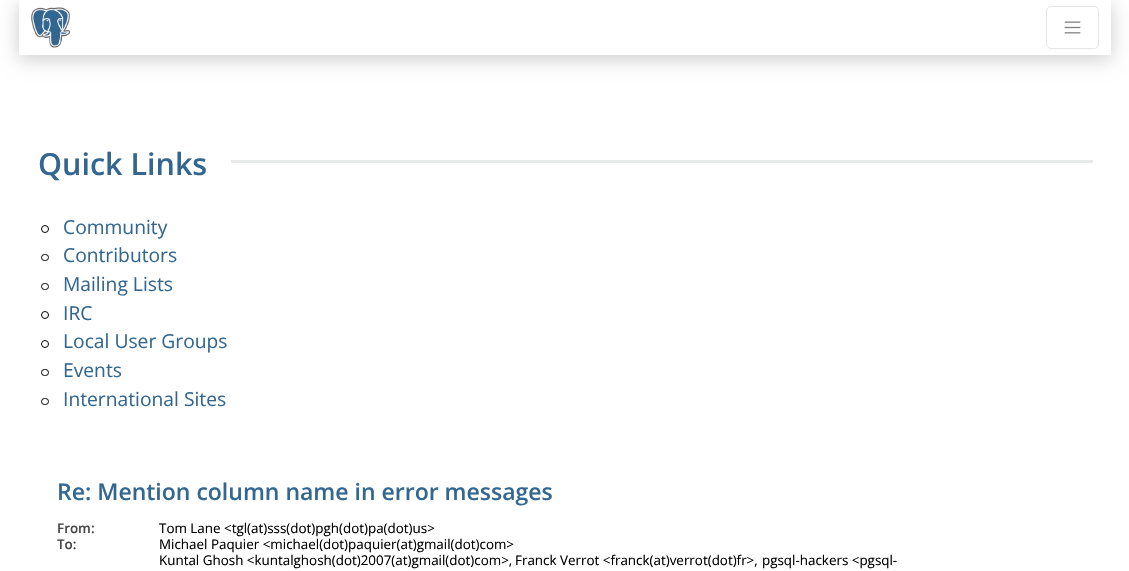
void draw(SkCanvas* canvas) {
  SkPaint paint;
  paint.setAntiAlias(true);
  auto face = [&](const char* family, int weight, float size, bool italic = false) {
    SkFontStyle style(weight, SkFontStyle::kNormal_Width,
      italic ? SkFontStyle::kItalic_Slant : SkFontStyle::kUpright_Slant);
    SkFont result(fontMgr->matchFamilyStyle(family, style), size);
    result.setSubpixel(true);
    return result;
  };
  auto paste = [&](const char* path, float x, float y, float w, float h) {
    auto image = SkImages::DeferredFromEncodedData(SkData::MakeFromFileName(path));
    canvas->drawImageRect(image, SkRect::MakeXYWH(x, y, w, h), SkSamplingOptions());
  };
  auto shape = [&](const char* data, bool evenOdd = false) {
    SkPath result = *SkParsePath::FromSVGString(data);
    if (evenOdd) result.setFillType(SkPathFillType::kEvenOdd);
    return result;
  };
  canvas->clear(0xffffffff);
  canvas->save();
  canvas->clipPath(shape("M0 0H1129V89H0ZM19 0H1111V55H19Z", true), true);
  paint.setColor(0x33000000);
  paint.setMaskFilter(SkMaskFilter::MakeBlur(kNormal_SkBlurStyle, 9.5f));
  canvas->drawRect(SkRect::MakeXYWH(19, 4, 1092, 55), paint);
  paint.setMaskFilter(nullptr);
  canvas->restore();
  paste("img/1.png", 31, 7, 39, 41);
  paint.setStroke(true);
  paint.setStrokeWidth(1);
  paint.setColor(0xffe6e6e6);
  canvas->drawRoundRect(SkRect::MakeXYWH(1046.5f, 6.5f, 52, 42), 4.5f, 4.5f, paint);
  paste("img/2.png", 1064, 21, 17, 13);
  paint.setStroke(false);
  paint.setColor(0xffe7eae8);
  canvas->drawRect(SkRect::MakeXYWH(231, 160, 862, 3), paint);
  paint.setStroke(true);
  paint.setColor(0xff000000);
  canvas->drawCircle(45, 229, 3.5f, paint);
  canvas->drawRoundRect(SkRect::MakeXYWH(41.5f, 254.5f, 7, 6), 3, 3, paint);
  canvas->drawRoundRect(SkRect::MakeXYWH(41.5f, 283.5f, 7, 6), 3, 3, paint);
  canvas->drawCircle(45, 315, 3.5f, paint);
  canvas->drawCircle(45, 344, 3.5f, paint);
  canvas->drawRoundRect(SkRect::MakeXYWH(41.5f, 369.5f, 7, 6), 3, 3, paint);
  canvas->drawRoundRect(SkRect::MakeXYWH(41.5f, 398.5f, 7, 6), 3, 3, paint);
  auto f0 = face("Open Sans", 600, 30.5f);
  paint.setStroke(false);
  paint.setColor(0xff336791);
  canvas->drawString("Quick Links", 38, 175, f0, paint);
  auto f1 = face("Open Sans", 400, 19.25f);
  {
    const struct { const char* s; float x, y; } items[] = {
      {"Community", 63, 234},
      {"Contributors", 63, 262},
      {"Mailing Lists", 63, 291},
      {"IRC", 63, 320},
      {"Local User Groups", 63, 348},
      {"Events", 63, 377},
      {"International Sites", 63, 406},
    };
    for (auto [s, x, y] : items) {
      canvas->drawString(s, x, y, f1, paint);
    }
  }
  auto f2 = face("Open Sans", 600, 23);
  canvas->drawString("Re: Mention column name in error messages", 57, 500, f2, paint);
  auto f3 = face("Open Sans", 600, 13.4f);
  paint.setColor(0xff474747);
  canvas->drawString("From:", 57, 533, f3, paint);
  auto f4 = face("Open Sans", 400, 13.4f);
  paint.setColor(0xff000000);
  canvas->drawString("Tom Lane <tgl(at)sss(dot)pgh(dot)pa(dot)us>", 159, 533, f4, paint);
  paint.setColor(0xff474747);
  canvas->drawString("To:", 57, 549, f3, paint);
  paint.setColor(0xff000000);
  {
    const struct { const char* s; float x, y; } items[] = {
      {"Michael Paquier <michael(dot)paquier(at)gmail(dot)com>", 159, 549},
      {"Kuntal Ghosh <kuntalghosh(dot)2007(at)gmail(dot)com>,", 159, 565},
      {"Franck Verrot <franck(at)verrot(dot)fr>,", 515, 565},
      {"pgsql-hackers <pgsql-", 762, 565},
    };
    for (auto [s, x, y] : items) {
      canvas->drawString(s, x, y, f4, paint);
    }
  }
}
